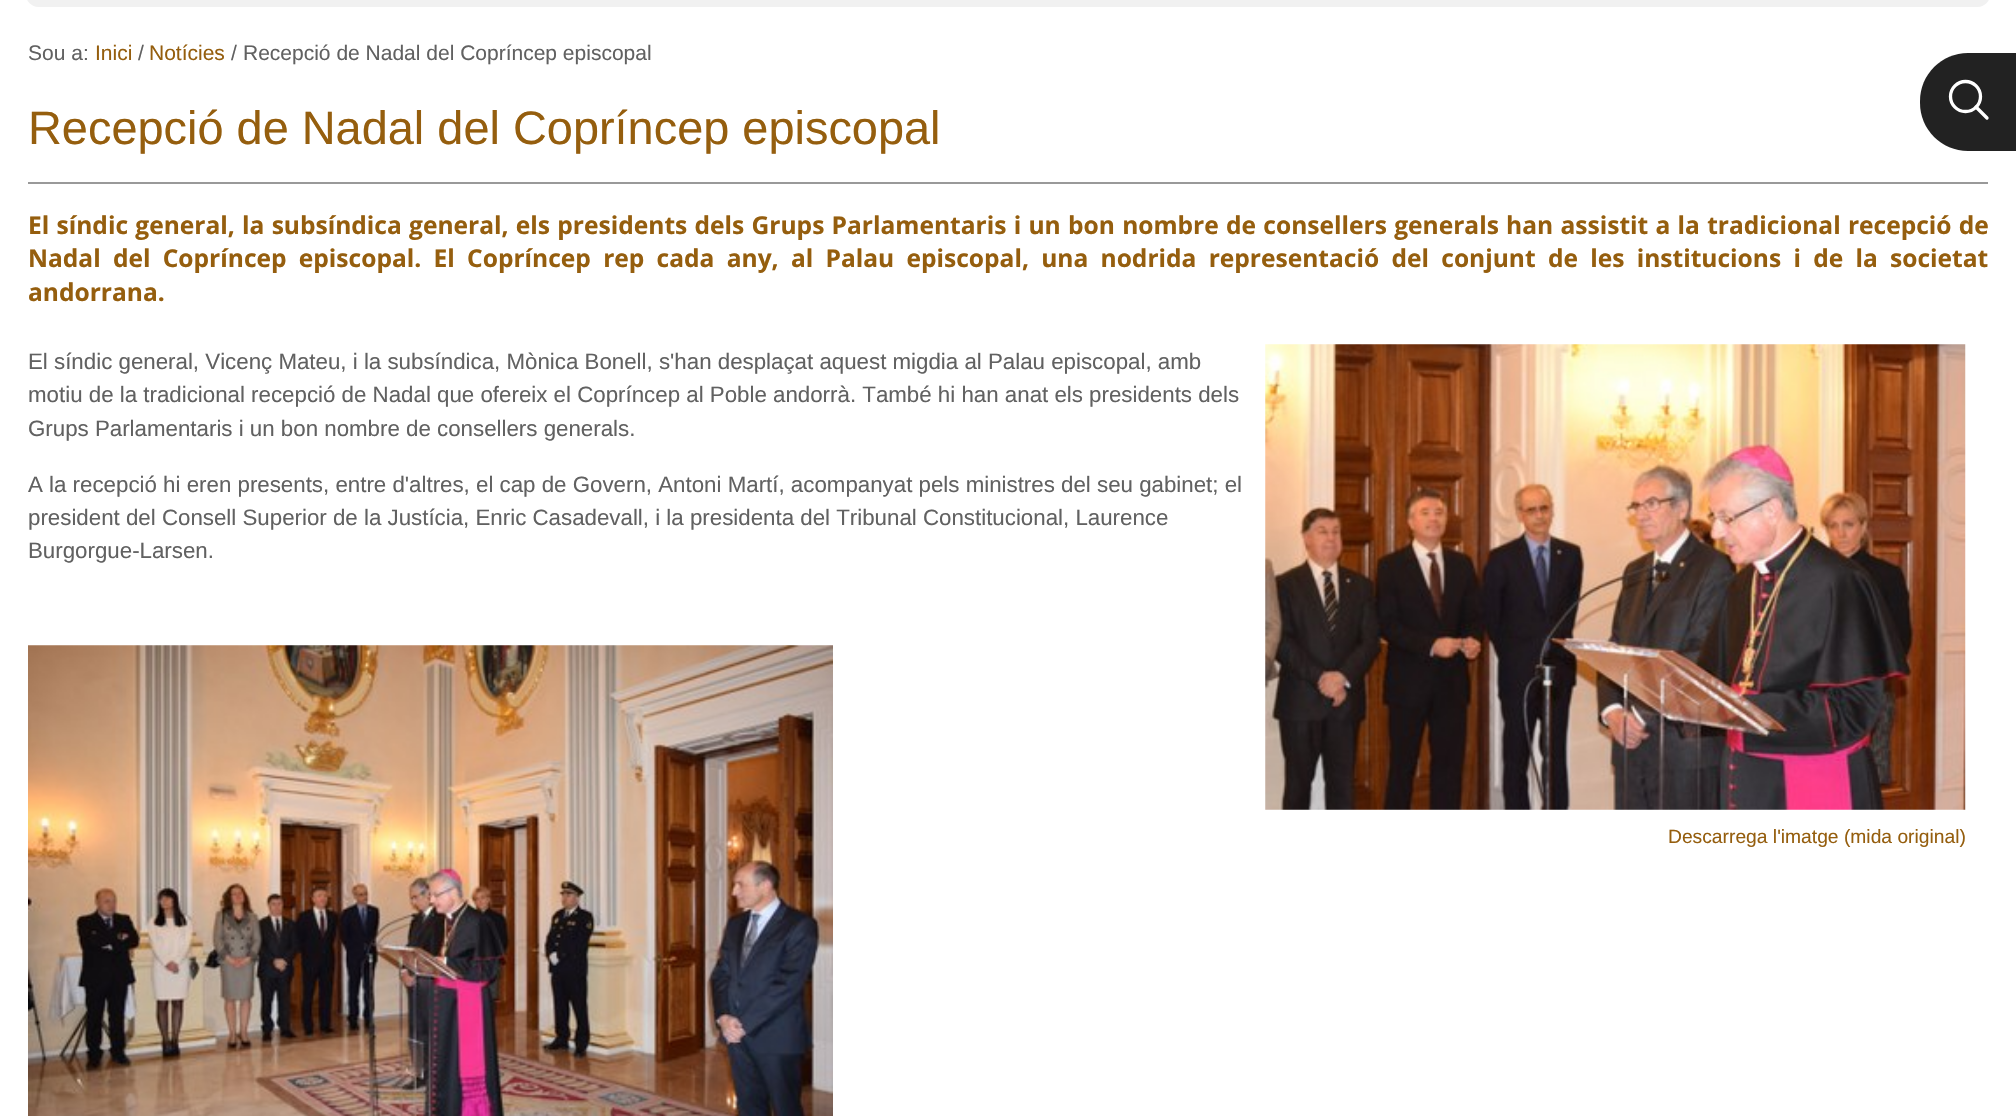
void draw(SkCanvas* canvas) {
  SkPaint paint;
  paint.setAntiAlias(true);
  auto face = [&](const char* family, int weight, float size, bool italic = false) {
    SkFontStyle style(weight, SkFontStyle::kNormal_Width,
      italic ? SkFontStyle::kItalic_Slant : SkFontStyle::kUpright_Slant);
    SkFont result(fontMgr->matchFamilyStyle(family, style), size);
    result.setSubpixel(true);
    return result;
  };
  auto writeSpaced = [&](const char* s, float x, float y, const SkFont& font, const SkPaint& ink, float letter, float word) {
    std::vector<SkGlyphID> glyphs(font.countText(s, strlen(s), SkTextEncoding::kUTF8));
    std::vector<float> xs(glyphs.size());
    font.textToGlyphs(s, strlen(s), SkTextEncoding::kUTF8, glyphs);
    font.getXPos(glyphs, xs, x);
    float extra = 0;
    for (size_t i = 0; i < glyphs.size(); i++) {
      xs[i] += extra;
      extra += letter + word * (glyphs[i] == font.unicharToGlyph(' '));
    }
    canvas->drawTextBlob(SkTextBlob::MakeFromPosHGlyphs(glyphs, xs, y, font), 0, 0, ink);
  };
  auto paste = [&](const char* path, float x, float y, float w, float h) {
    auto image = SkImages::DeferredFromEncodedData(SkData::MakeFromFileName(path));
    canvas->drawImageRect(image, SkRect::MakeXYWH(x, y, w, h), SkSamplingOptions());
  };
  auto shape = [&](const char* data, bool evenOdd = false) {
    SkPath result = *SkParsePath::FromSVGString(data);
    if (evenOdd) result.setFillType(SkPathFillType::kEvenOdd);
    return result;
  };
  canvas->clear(0xffffffff);
  paint.setColor(0xfff1f1f1);
  canvas->drawRoundRect(SkRect::MakeXYWH(26, -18, 1964, 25), 18, 18, paint);
  paint.setColor(0xff222222);
  canvas->drawPath(shape("M1968 53H2016V151H1968C1941.5 151 1920 129.5 1920 103V101C1920 74.5 1941.5 53 1968 53Z"), paint);
  paint.setStroke(true);
  paint.setStrokeWidth(3.3f);
  paint.setColor(0xffffffff);
  canvas->drawCircle(1965.5f, 96.5f, 15, paint);
  paint.setStrokeCap(SkPaint::kRound_Cap);
  paint.setStrokeJoin(SkPaint::kRound_Join);
  canvas->drawPath(shape("M1987 118L1976 107"), paint);
  paint.setStroke(false);
  paint.setColor(0xff999999);
  canvas->drawRect(SkRect::MakeXYWH(28, 182, 1960, 2), paint);
  paste("img/1.png", 28, 645, 805, 471);
  paste("img/2.png", 1265, 344, 701, 466);
  auto f0 = face("Liberation Sans", 400, 21);
  paint.setColor(0xff616161);
  canvas->drawString("Sou a:", 28, 60, f0, paint);
  paint.setColor(0xff955e0e);
  canvas->drawString("Inici", 95, 60, f0, paint);
  paint.setColor(0xff616161);
  canvas->drawString("/", 138, 60, f0, paint);
  paint.setColor(0xff955e0e);
  canvas->drawString("Notícies", 149, 60, f0, paint);
  paint.setColor(0xff616161);
  canvas->drawString("/", 231, 60, f0, paint);
  canvas->drawString("Recepció de Nadal del Copríncep episcopal", 243, 60, f0, paint);
  auto f1 = face("Liberation Sans", 400, 46.9f);
  paint.setColor(0xff955e0e);
  canvas->drawString("Recepció de Nadal del Copríncep episcopal", 28, 144, f1, paint);
  auto f2 = face("Open Sans", 700, 24.55f);
  writeSpaced("El síndic general, la subsíndica general, els presidents dels Grups Parlamentaris i un bon nombre de consellers generals han assistit a la tradicional recepció de", 28, 234, f2, paint, 0, 0.9f);
  writeSpaced("Nadal del Copríncep episcopal. El Copríncep rep cada any, al Palau episcopal, una nodrida representació del conjunt de les institucions i de la societat", 28, 267, f2, paint, 0, 5.9f);
  canvas->drawString("andorrana.", 28, 301, f2, paint);
  auto f3 = face("Liberation Sans", 400, 22.3f);
  paint.setColor(0xff616161);
  {
    const struct { const char* s; float x, y; } items[] = {
      {"El síndic general, Vicenç Mateu, i la subsíndica, Mònica Bonell, s'han desplaçat aquest migdia al Palau episcopal, amb", 28, 369},
      {"motiu de la tradicional recepció de Nadal que ofereix el Copríncep al Poble andorrà. També hi han anat els presidents dels", 28, 402},
      {"Grups Parlamentaris i un bon nombre de consellers generals.", 28, 436},
      {"A la recepció hi eren presents, entre d'altres, el cap de Govern, Antoni Martí, acompanyat pels ministres del seu gabinet; el", 28, 492},
      {"president del Consell Superior de la Justícia, Enric Casadevall, i la presidenta del Tribunal Constitucional, Laurence", 28, 525},
      {"Burgorgue-Larsen.", 28, 558},
    };
    for (auto [s, x, y] : items) {
      canvas->drawString(s, x, y, f3, paint);
    }
  }
  auto f4 = face("Liberation Sans", 400, 19.25f);
  paint.setColor(0xff955e0e);
  canvas->drawString("Descarrega l'imatge (mida original)", 1668, 843, f4, paint);
}
